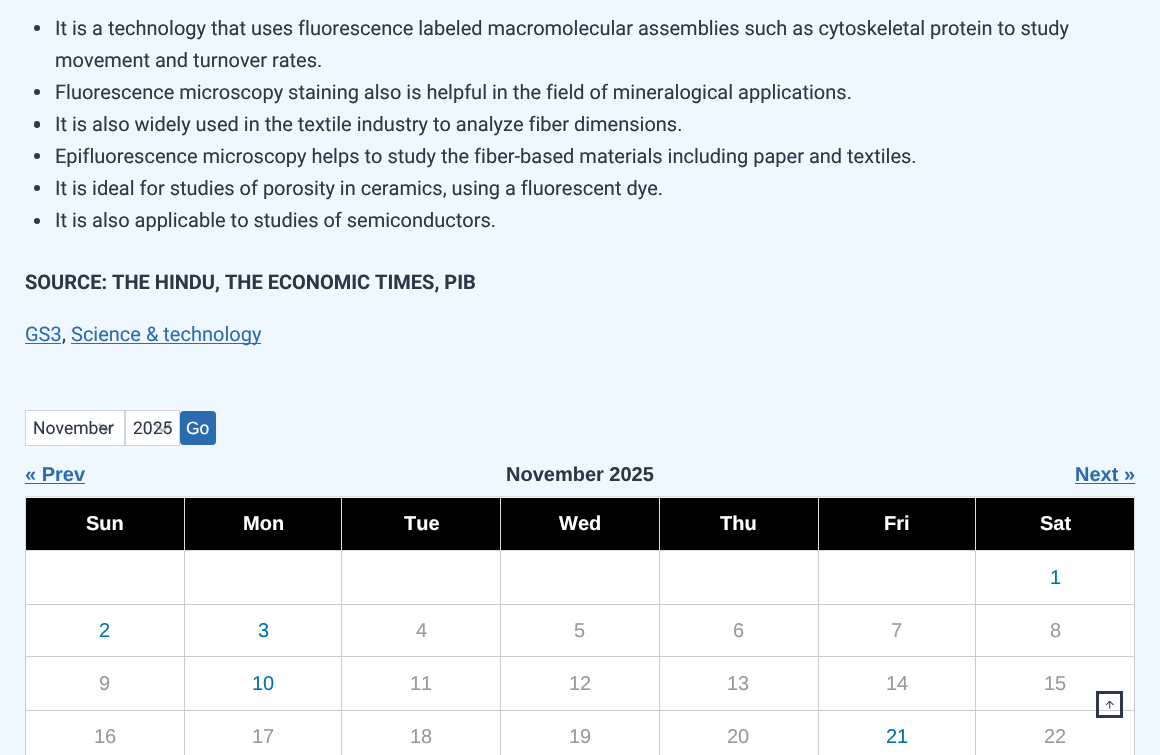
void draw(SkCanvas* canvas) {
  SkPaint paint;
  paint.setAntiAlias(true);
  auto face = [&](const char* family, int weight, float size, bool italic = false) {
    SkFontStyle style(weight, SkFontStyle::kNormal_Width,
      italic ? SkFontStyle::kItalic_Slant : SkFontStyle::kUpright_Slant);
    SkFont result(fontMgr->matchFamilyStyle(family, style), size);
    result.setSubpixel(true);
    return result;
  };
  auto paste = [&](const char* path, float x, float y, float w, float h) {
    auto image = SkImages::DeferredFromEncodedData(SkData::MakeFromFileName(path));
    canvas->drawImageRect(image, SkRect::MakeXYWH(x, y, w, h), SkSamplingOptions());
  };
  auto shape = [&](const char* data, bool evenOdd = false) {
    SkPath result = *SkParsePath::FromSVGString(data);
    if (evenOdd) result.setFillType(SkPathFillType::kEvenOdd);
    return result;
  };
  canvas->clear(0xffeff8ff);
  paint.setColor(0xff2d3748);
  canvas->drawCircle(37, 28, 3, paint);
  canvas->drawCircle(37, 92, 3, paint);
  canvas->drawRoundRect(SkRect::MakeXYWH(34, 121, 6, 7), 3, 3, paint);
  canvas->drawCircle(37, 156, 3, paint);
  canvas->drawCircle(37, 188, 3, paint);
  canvas->drawCircle(37, 221, 3, paint);
  {
    const struct { float x, y, w, h; SkColor color; } items[] = {
      {25, 343, 36, 1, 0xff2b6cb0},
      {71, 343, 190, 1, 0xff2b6cb0},
      {26, 411, 98, 34, 0xffffffff},
    };
    for (auto [x, y, w, h, color] : items) {
      paint.setColor(color);
      canvas->drawRect(SkRect::MakeXYWH(x, y, w, h), paint);
    }
  }
  paint.setStroke(true);
  paint.setStrokeWidth(2.5f);
  paint.setColor(0xffbbbbbb);
  canvas->drawPath(shape("M99 424L106 431L114 424"), paint);
  paint.setStrokeWidth(1);
  paint.setColor(0xffcbd5e0);
  canvas->drawRect(SkRect::MakeXYWH(25.5f, 410.5f, 99, 35), paint);
  paint.setStroke(false);
  paint.setColor(0xffffffff);
  canvas->drawRect(SkRect::MakeXYWH(126, 411, 53, 34), paint);
  paint.setStroke(true);
  paint.setStrokeWidth(2.5f);
  paint.setColor(0xffbbbbbb);
  canvas->drawPath(shape("M155 424L162.5 431L170 424"), paint);
  paint.setStrokeWidth(1);
  paint.setColor(0xffcbd5e0);
  canvas->drawRect(SkRect::MakeXYWH(125.5f, 410.5f, 54, 35), paint);
  paint.setStroke(false);
  paint.setColor(0xff2b6cb0);
  canvas->drawRoundRect(SkRect::MakeXYWH(180, 411, 36, 34), 4, 4, paint);
  {
    const struct { float x, y, w, h; SkColor color; } items[] = {
      {25, 483, 60, 1, 0xff2b6cb0},
      {1075, 483, 60, 1, 0xff2b6cb0},
      {26, 498, 158, 52, 0xff000000},
      {975, 496, 160, 1, 0xffdddddd},
      {975, 604, 160, 1, 0xffcccccc},
      {976, 605, 158, 105, 0xffffffff},
      {975, 656, 160, 1, 0xffcccccc},
      {975, 710, 160, 1, 0xffcccccc},
      {1134, 710, 1, 45, 0xffcccccc},
      {1134, 656, 1, 55, 0xffcccccc},
      {1134, 550, 1, 108, 0xffcccccc},
      {1134, 496, 1, 55, 0xffdddddd},
      {819, 605, 156, 105, 0xffffffff},
      {975, 710, 1, 45, 0xffcccccc},
      {818, 710, 158, 1, 0xffcccccc},
      {975, 656, 1, 55, 0xffcccccc},
      {818, 656, 158, 1, 0xffcccccc},
      {975, 604, 1, 54, 0xffcccccc},
      {818, 604, 158, 1, 0xffcccccc},
      {975, 550, 1, 55, 0xffcccccc},
      {975, 550, 160, 1, 0xffdddddd},
      {975, 496, 1, 55, 0xffdddddd},
      {818, 496, 158, 1, 0xffdddddd},
      {660, 605, 158, 105, 0xffffffff},
      {818, 710, 1, 45, 0xffcccccc},
      {659, 710, 160, 1, 0xffcccccc},
      {818, 656, 1, 55, 0xffcccccc},
      {659, 656, 160, 1, 0xffcccccc},
      {818, 604, 1, 54, 0xffcccccc},
      {659, 604, 160, 1, 0xffcccccc},
      {818, 550, 1, 55, 0xffcccccc},
      {818, 550, 158, 1, 0xffdddddd},
      {818, 496, 1, 55, 0xffdddddd},
      {659, 496, 160, 1, 0xffdddddd},
      {501, 605, 158, 105, 0xffffffff},
      {659, 710, 1, 45, 0xffcccccc},
      {500, 710, 160, 1, 0xffcccccc},
      {659, 656, 1, 55, 0xffcccccc},
      {500, 656, 160, 1, 0xffcccccc},
      {659, 604, 1, 54, 0xffcccccc},
      {500, 604, 160, 1, 0xffcccccc},
      {659, 550, 1, 55, 0xffcccccc},
      {659, 550, 160, 1, 0xffdddddd},
      {659, 496, 1, 55, 0xffdddddd},
      {500, 496, 160, 1, 0xffdddddd},
      {185, 605, 315, 53, 0xffffffff},
      {500, 710, 1, 45, 0xffcccccc},
      {341, 710, 160, 1, 0xffcccccc},
      {500, 656, 1, 55, 0xffcccccc},
      {341, 656, 160, 1, 0xffcccccc},
      {500, 604, 1, 54, 0xffcccccc},
      {341, 604, 160, 1, 0xffcccccc},
      {500, 550, 1, 55, 0xffcccccc},
      {500, 550, 160, 1, 0xffdddddd},
      {500, 496, 1, 55, 0xffdddddd},
      {341, 496, 160, 1, 0xffdddddd},
      {185, 498, 315, 52, 0xff000000},
      {185, 551, 315, 53, 0xffffffff},
      {185, 658, 315, 52, 0xffffffff},
      {185, 711, 315, 44, 0xffffffff},
      {341, 710, 1, 45, 0xffcccccc},
      {184, 710, 159, 1, 0xffcccccc},
      {341, 656, 1, 55, 0xffcccccc},
      {184, 656, 159, 1, 0xffcccccc},
      {341, 604, 1, 54, 0xffcccccc},
      {184, 604, 159, 1, 0xffcccccc},
      {341, 550, 1, 55, 0xffcccccc},
      {341, 550, 160, 1, 0xffdddddd},
      {341, 496, 1, 55, 0xffdddddd},
      {184, 496, 159, 1, 0xffdddddd},
      {26, 605, 158, 105, 0xffffffff},
      {184, 710, 1, 45, 0xffcccccc},
      {25, 710, 160, 1, 0xffcccccc},
      {184, 656, 1, 55, 0xffcccccc},
      {25, 656, 160, 1, 0xffcccccc},
      {184, 604, 1, 54, 0xffcccccc},
      {25, 604, 160, 1, 0xffcccccc},
      {184, 550, 1, 55, 0xffcccccc},
      {184, 550, 159, 1, 0xffdddddd},
      {184, 496, 1, 55, 0xffdddddd},
      {25, 496, 160, 1, 0xffdddddd},
      {25, 710, 1, 45, 0xffcccccc},
      {25, 656, 1, 55, 0xffcccccc},
      {25, 550, 1, 108, 0xffcccccc},
      {25, 550, 160, 1, 0xffdddddd},
      {25, 496, 1, 55, 0xffdddddd},
      {501, 498, 158, 52, 0xff000000},
      {660, 498, 158, 52, 0xff000000},
      {819, 498, 156, 52, 0xff000000},
      {976, 498, 158, 52, 0xff000000},
      {26, 551, 158, 53, 0xffffffff},
      {501, 551, 158, 53, 0xffffffff},
      {660, 551, 158, 53, 0xffffffff},
      {819, 551, 156, 53, 0xffffffff},
      {976, 551, 158, 53, 0xffffffff},
      {26, 711, 158, 44, 0xffffffff},
      {501, 711, 158, 44, 0xffffffff},
      {660, 711, 158, 44, 0xffffffff},
      {819, 711, 156, 44, 0xffffffff},
      {976, 711, 158, 44, 0xffffffff},
    };
    for (auto [x, y, w, h, color] : items) {
      paint.setColor(color);
      canvas->drawRect(SkRect::MakeXYWH(x, y, w, h), paint);
    }
  }
  paint.setStroke(true);
  paint.setStrokeWidth(3);
  paint.setColor(0xff2d3748);
  canvas->drawRect(SkRect::MakeXYWH(1097.5f, 692.5f, 24, 24), paint);
  paste("img/1.png", 1105, 700, 9, 9);
  auto f0 = face("Roboto", 400, 20);
  paint.setStroke(false);
  {
    const struct { const char* s; float x, y; } items[] = {
      {"It is a technology that uses fluorescence labeled macromolecular assemblies such as cytoskeletal protein to study", 55, 35},
      {"movement and turnover rates.", 55, 67},
      {"Fluorescence microscopy staining also is helpful in the field of mineralogical applications.", 55, 99},
      {"It is also widely used in the textile industry to analyze fiber dimensions.", 55, 131},
      {"Epifluorescence microscopy helps to study the fiber-based materials including paper and textiles.", 55, 163},
      {"It is ideal for studies of porosity in ceramics, using a fluorescent dye.", 55, 195},
      {"It is also applicable to studies of semiconductors.", 55, 227},
    };
    for (auto [s, x, y] : items) {
      canvas->drawString(s, x, y, f0, paint);
    }
  }
  auto f1 = face("Roboto", 700, 20);
  canvas->drawString("SOURCE: THE HINDU, THE ECONOMIC TIMES, PIB", 25, 289, f1, paint);
  paint.setColor(0xff2b6cb0);
  canvas->drawString("GS3", 25, 341, f0, paint);
  paint.setColor(0xff2d3748);
  canvas->drawString(",", 62, 341, f0, paint);
  paint.setColor(0xff2b6cb0);
  canvas->drawString("Science & technology", 71, 341, f0, paint);
  auto f2 = face("Roboto", 400, 17.5f);
  paint.setColor(0xff2d3748);
  canvas->drawString("November", 33, 434, f2, paint);
  canvas->drawString("2025", 133, 434, f2, paint);
  auto f3 = face("Liberation Sans", 400, 17.5f);
  paint.setColor(0xffffffff);
  canvas->drawString("Go", 186, 434, f3, paint);
  auto f4 = face("Liberation Sans", 700, 20);
  paint.setColor(0xff2b6cb0);
  canvas->drawString("« Prev", 25, 481, f4, paint);
  paint.setColor(0xff2d3748);
  canvas->drawString("November 2025", 506, 481, f4, paint);
  paint.setColor(0xff2b6cb0);
  canvas->drawString("Next »", 1075, 481, f4, paint);
  paint.setColor(0xffffffff);
  {
    const struct { const char* s; float x, y; } items[] = {
      {"Sun", 86, 530},
      {"Mon", 243, 530},
      {"Tue", 404, 530},
      {"Wed", 559, 530},
      {"Thu", 720, 530},
      {"Fri", 884, 530},
      {"Sat", 1040, 530},
    };
    for (auto [s, x, y] : items) {
      canvas->drawString(s, x, y, f4, paint);
    }
  }
  auto f5 = face("Liberation Sans", 400, 20);
  paint.setColor(0xff0073aa);
  {
    const struct { const char* s; float x, y; } items[] = {
      {"1", 1050, 584},
      {"2", 99, 637},
      {"3", 258, 637},
    };
    for (auto [s, x, y] : items) {
      canvas->drawString(s, x, y, f5, paint);
    }
  }
  paint.setColor(0xff999999);
  {
    const struct { const char* s; float x, y; } items[] = {
      {"4", 416, 637},
      {"5", 574, 637},
      {"6", 733, 637},
      {"7", 891, 637},
      {"8", 1050, 637},
      {"9", 99, 690},
    };
    for (auto [s, x, y] : items) {
      canvas->drawString(s, x, y, f5, paint);
    }
  }
  paint.setColor(0xff0073aa);
  canvas->drawString("10", 252, 690, f5, paint);
  paint.setColor(0xff999999);
  {
    const struct { const char* s; float x, y; } items[] = {
      {"11", 410, 690},
      {"12", 569, 690},
      {"13", 727, 690},
      {"14", 886, 690},
      {"15", 1044, 690},
      {"16", 94, 743},
      {"17", 252, 743},
      {"18", 410, 743},
      {"19", 569, 743},
      {"20", 727, 743},
    };
    for (auto [s, x, y] : items) {
      canvas->drawString(s, x, y, f5, paint);
    }
  }
  paint.setColor(0xff0073aa);
  canvas->drawString("21", 886, 743, f5, paint);
  paint.setColor(0xff999999);
  canvas->drawString("22", 1044, 743, f5, paint);
}
